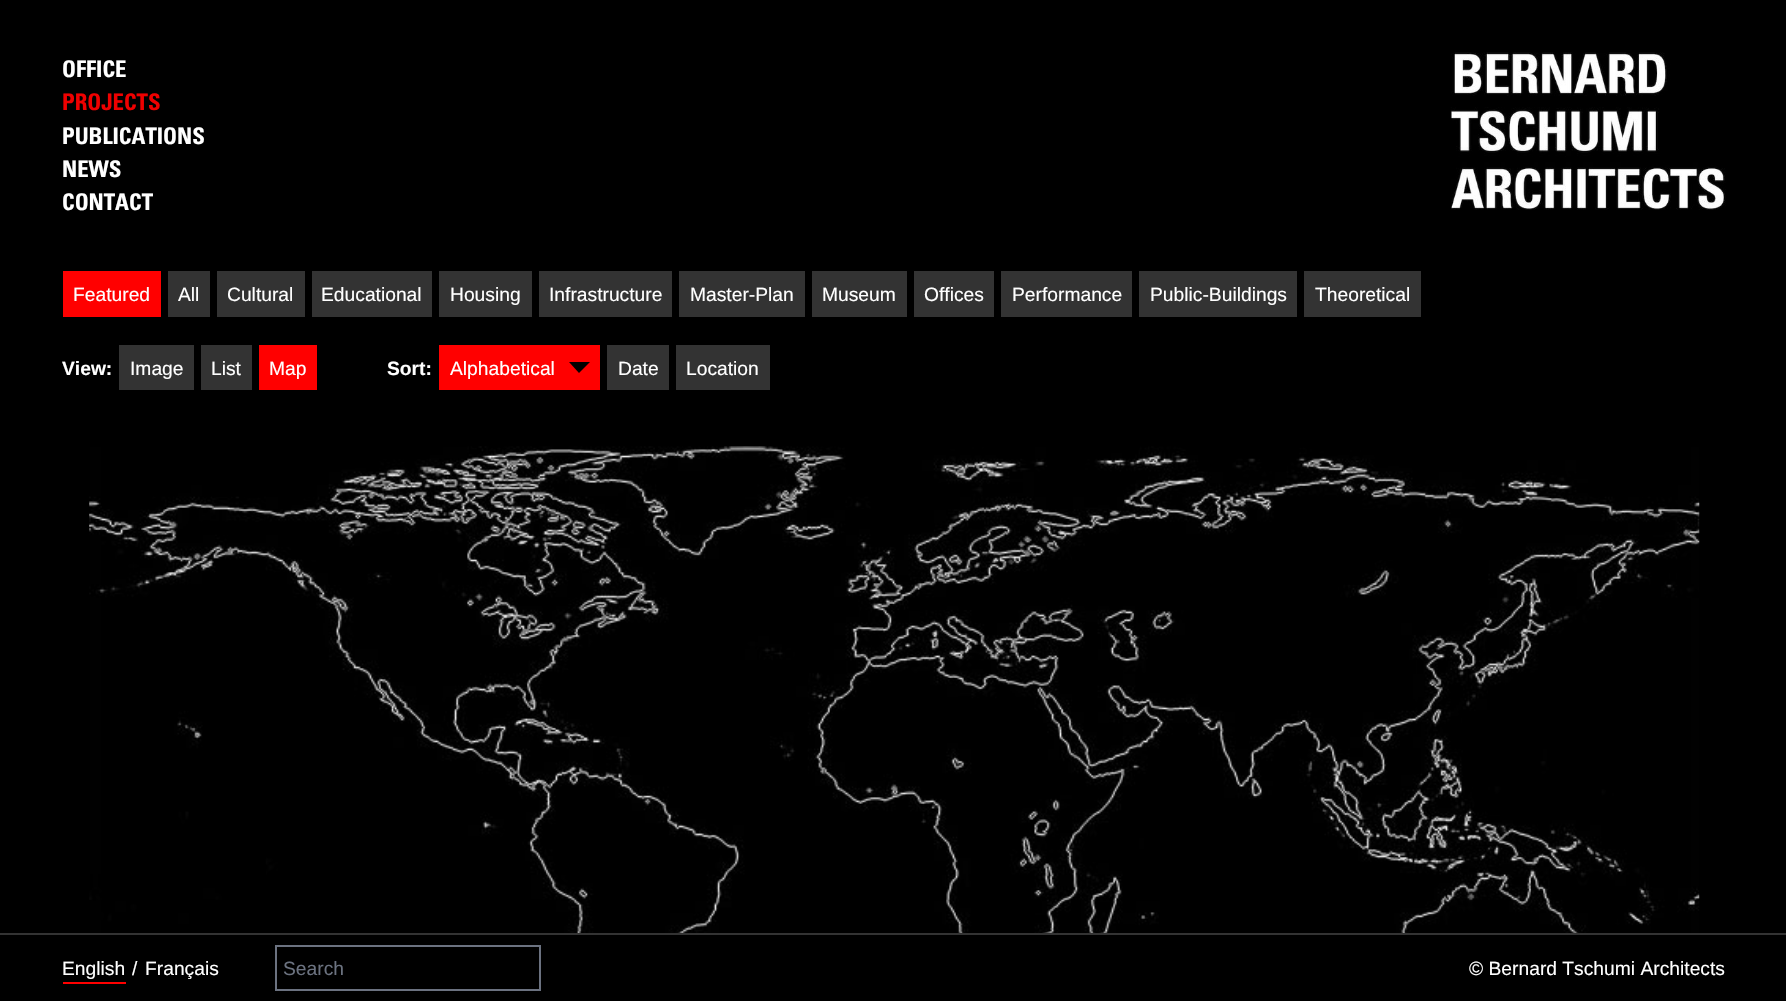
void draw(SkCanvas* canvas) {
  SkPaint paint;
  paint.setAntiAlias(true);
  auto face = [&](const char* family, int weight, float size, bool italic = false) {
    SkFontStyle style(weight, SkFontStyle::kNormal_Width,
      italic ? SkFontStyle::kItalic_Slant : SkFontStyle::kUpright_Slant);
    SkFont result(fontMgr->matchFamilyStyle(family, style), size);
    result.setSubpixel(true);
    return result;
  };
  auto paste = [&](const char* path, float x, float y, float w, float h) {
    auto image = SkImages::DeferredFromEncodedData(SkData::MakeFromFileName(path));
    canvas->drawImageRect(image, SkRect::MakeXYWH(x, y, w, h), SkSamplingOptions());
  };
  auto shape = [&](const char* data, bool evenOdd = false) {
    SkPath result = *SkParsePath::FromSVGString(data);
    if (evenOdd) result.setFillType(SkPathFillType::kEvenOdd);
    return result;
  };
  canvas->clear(0xff000000);
  paste("img/1.png", 1450, 52, 276, 158);
  {
    const struct { float x, y, w, h; SkColor color; } items[] = {
      {63, 271, 98, 46, 0xffff0000},
      {168, 271, 42, 46, 0xff333333},
      {217, 271, 88, 46, 0xff333333},
      {312, 271, 120, 46, 0xff333333},
      {439, 271, 93, 46, 0xff333333},
      {539, 271, 133, 46, 0xff333333},
      {679, 271, 126, 46, 0xff333333},
      {812, 271, 95, 46, 0xff333333},
      {914, 271, 80, 46, 0xff333333},
      {1001, 271, 131, 46, 0xff333333},
      {1139, 271, 158, 46, 0xff333333},
      {1304, 271, 117, 46, 0xff333333},
      {119, 345, 75, 45, 0xff333333},
      {201, 345, 51, 45, 0xff333333},
      {259, 345, 58, 45, 0xffff0000},
      {439, 345, 161, 45, 0xffff0000},
    };
    for (auto [x, y, w, h, color] : items) {
      paint.setColor(color);
      canvas->drawRect(SkRect::MakeXYWH(x, y, w, h), paint);
    }
  }
  paint.setColor(0xff000000);
  canvas->drawPath(shape("M569 362H590L579 373Z"), paint);
  paint.setColor(0xff333333);
  canvas->drawRect(SkRect::MakeXYWH(607, 345, 62, 45), paint);
  canvas->drawRect(SkRect::MakeXYWH(676, 345, 94, 45), paint);
  paste("img/2.png", 89, 446, 1611, 487);
  canvas->drawRect(SkRect::MakeXYWH(0, 933, 1786, 2), paint);
  paint.setColor(0xffff0000);
  canvas->drawRect(SkRect::MakeXYWH(63, 982, 63, 2), paint);
  paint.setStroke(true);
  paint.setStrokeWidth(2);
  paint.setColor(0xff6b7280);
  canvas->drawRect(SkRect::MakeXYWH(276, 946, 264, 44), paint);
  auto f0 = face("Univers", 700, 22.75f);
  paint.setStroke(false);
  paint.setColor(0xffffffff);
  canvas->drawString("OFFICE", 62, 77, f0, paint);
  paint.setColor(0xffef0000);
  canvas->drawString("PROJECTS", 62, 110, f0, paint);
  paint.setColor(0xffffffff);
  {
    const struct { const char* s; float x, y; } items[] = {
      {"PUBLICATIONS", 62, 144},
      {"NEWS", 62, 177},
      {"CONTACT", 62, 210},
    };
    for (auto [s, x, y] : items) {
      canvas->drawString(s, x, y, f0, paint);
    }
  }
  auto f1 = face("Liberation Sans", 400, 19.25f);
  {
    const struct { const char* s; float x, y; } items[] = {
      {"Featured", 73, 301},
      {"All", 178, 301},
      {"Cultural", 227, 301},
      {"Educational", 321, 301},
      {"Housing", 450, 301},
      {"Infrastructure", 549, 301},
      {"Master-Plan", 690, 301},
      {"Museum", 822, 301},
      {"Offices", 924, 301},
      {"Performance", 1012, 301},
      {"Public-Buildings", 1150, 301},
      {"Theoretical", 1315, 301},
    };
    for (auto [s, x, y] : items) {
      canvas->drawString(s, x, y, f1, paint);
    }
  }
  auto f2 = face("Liberation Sans", 700, 19.25f);
  canvas->drawString("View:", 62, 375, f2, paint);
  {
    const struct { const char* s; float x, y; } items[] = {
      {"Image", 130, 375},
      {"List", 211, 375},
      {"Map", 269, 375},
    };
    for (auto [s, x, y] : items) {
      canvas->drawString(s, x, y, f1, paint);
    }
  }
  canvas->drawString("Sort:", 387, 375, f2, paint);
  {
    const struct { const char* s; float x, y; } items[] = {
      {"Alphabetical", 450, 375},
      {"Date", 618, 375},
      {"Location", 686, 375},
      {"English", 62, 975},
      {"/", 132, 975},
      {"Français", 145, 975},
    };
    for (auto [s, x, y] : items) {
      canvas->drawString(s, x, y, f1, paint);
    }
  }
  paint.setColor(0xff6b7280);
  canvas->drawString("Search", 283, 975, f1, paint);
  paint.setColor(0xffffffff);
  canvas->drawString("© Bernard Tschumi Architects", 1469, 975, f1, paint);
}
